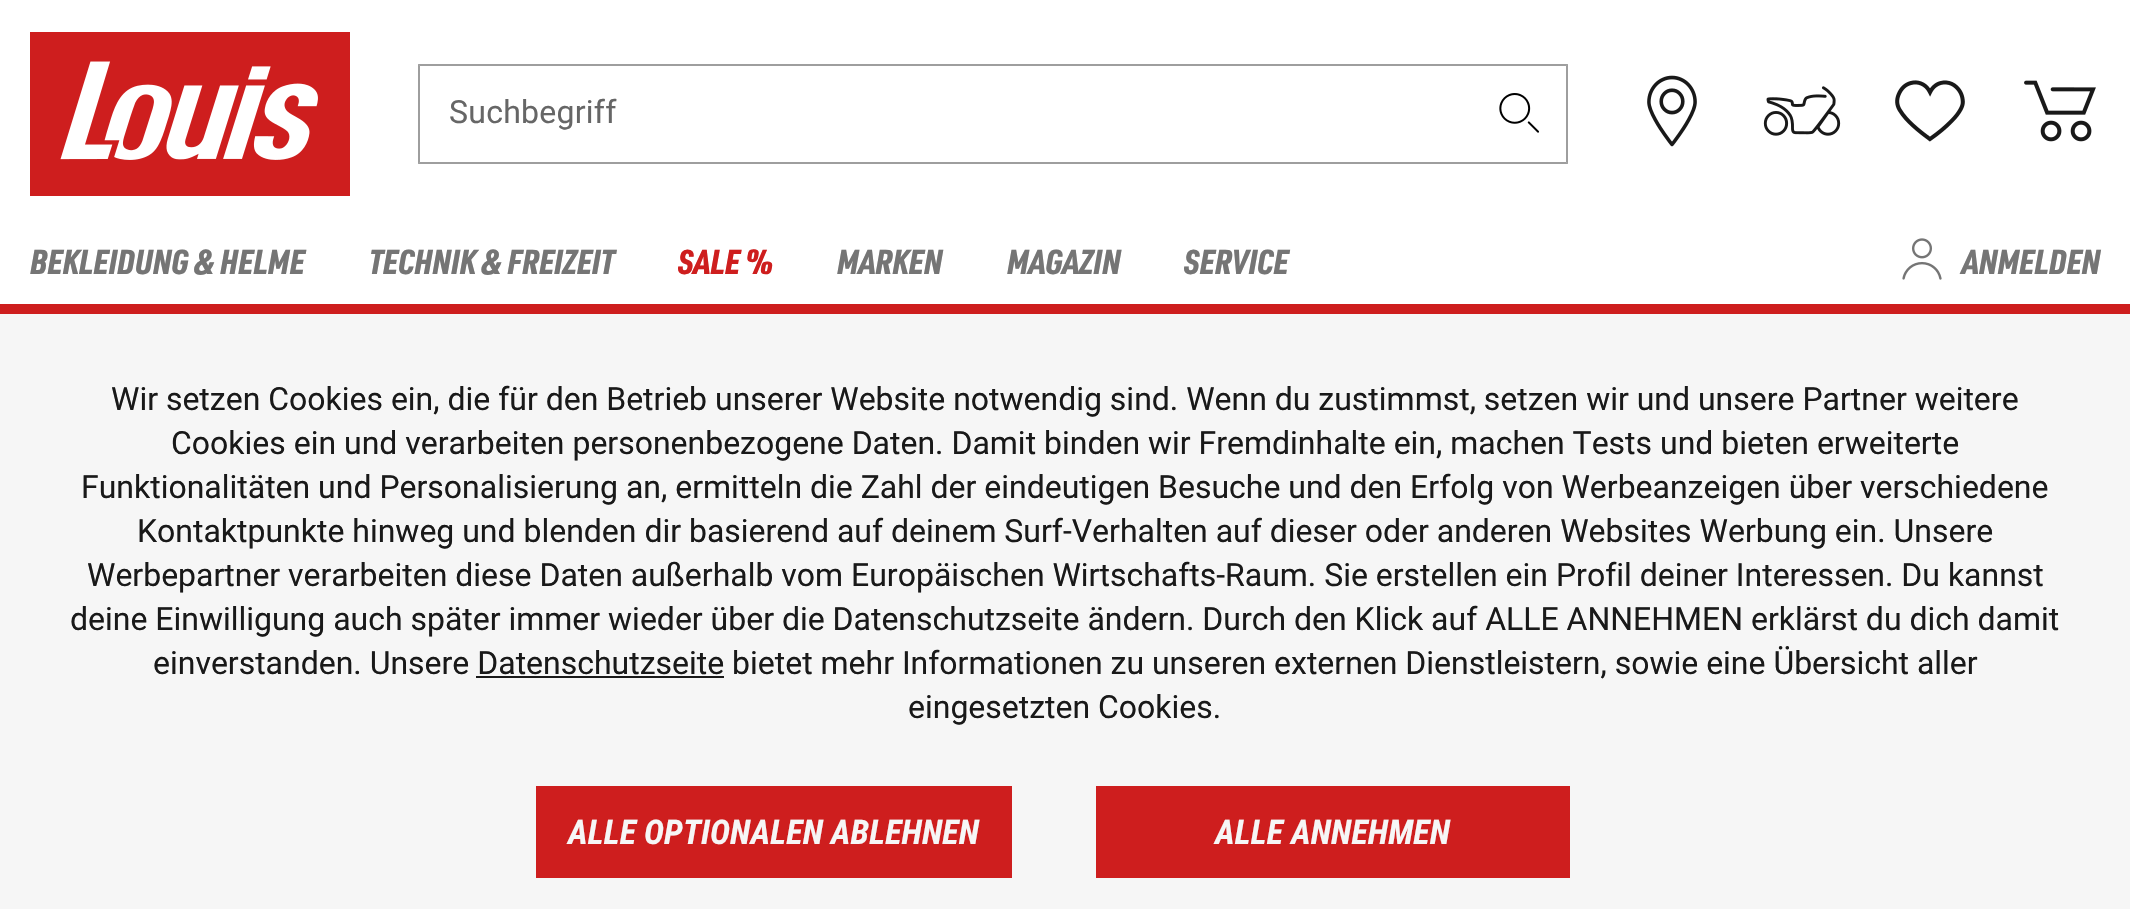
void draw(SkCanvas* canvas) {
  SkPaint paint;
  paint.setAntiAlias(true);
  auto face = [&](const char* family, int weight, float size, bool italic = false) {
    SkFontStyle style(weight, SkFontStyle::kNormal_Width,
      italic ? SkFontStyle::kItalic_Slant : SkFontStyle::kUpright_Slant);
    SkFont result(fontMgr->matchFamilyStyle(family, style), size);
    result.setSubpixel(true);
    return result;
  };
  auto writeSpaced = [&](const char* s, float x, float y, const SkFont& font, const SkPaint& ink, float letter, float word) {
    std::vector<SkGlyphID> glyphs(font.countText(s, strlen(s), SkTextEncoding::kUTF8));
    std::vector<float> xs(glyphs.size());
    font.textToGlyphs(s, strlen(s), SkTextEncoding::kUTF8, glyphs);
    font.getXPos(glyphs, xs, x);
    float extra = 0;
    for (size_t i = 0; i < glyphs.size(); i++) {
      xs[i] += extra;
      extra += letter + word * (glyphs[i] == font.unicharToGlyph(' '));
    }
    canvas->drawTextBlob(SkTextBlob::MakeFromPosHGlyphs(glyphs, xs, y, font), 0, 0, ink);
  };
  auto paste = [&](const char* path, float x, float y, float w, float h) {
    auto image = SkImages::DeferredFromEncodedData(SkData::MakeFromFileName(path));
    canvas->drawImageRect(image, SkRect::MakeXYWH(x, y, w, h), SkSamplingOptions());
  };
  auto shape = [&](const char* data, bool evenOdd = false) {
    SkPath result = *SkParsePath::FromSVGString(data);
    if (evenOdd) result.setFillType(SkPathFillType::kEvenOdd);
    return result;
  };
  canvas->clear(0xffffffff);
  paste("img/1.png", 30, 32, 320, 164);
  paint.setColor(0xff9e9e9e);
  canvas->drawPath(shape("M418 64H442V66H420Z"), paint);
  canvas->drawPath(shape("M442 164H418L420 162H442Z"), paint);
  paint.setColor(0x61000000);
  canvas->drawPath(shape("M418 164V64L420 66V162Z"), paint);
  paint.setColor(0xff9e9e9e);
  canvas->drawRect(SkRect::MakeXYWH(442, 64, 176, 2), paint);
  canvas->drawRect(SkRect::MakeXYWH(442, 162, 176, 2), paint);
  canvas->drawPath(shape("M618 64H1568L1566 66H618Z"), paint);
  paint.setColor(0x61000000);
  canvas->drawPath(shape("M1568 64V164L1566 162V66Z"), paint);
  canvas->drawPath(shape("M1568 164H618V162H1566Z"), paint);
  paste("img/2.png", 1499, 93, 40, 40);
  paste("img/3.png", 1647, 75, 50, 72);
  paste("img/4.png", 1763, 86, 78, 50);
  paste("img/5.png", 1895, 80, 70, 62);
  paste("img/6.png", 2024, 80, 72, 62);
  paste("img/7.png", 1902, 238, 40, 42);
  {
    const struct { float x, y, w, h; SkColor color; } items[] = {
      {0, 314, 2130, 595, 0xfff6f6f6},
      {0, 304, 2130, 10, 0xffce1e1e},
      {476, 676, 248, 2, 0xff191919},
      {536, 786, 476, 92, 0xffce1e1e},
      {1096, 786, 474, 92, 0xffce1e1e},
    };
    for (auto [x, y, w, h, color] : items) {
      paint.setColor(color);
      canvas->drawRect(SkRect::MakeXYWH(x, y, w, h), paint);
    }
  }
  auto f0 = face("Roboto", 400, 32);
  paint.setColor(0xff666666);
  writeSpaced("Suchbegriff", 449, 123, f0, paint, 0.25f, 0);
  auto f1 = face("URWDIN", 900, 34);
  paint.setColor(0xff757575);
  canvas->drawString("BEKLEIDUNG & HELME", 30, 274, f1, paint);
  canvas->drawString("TECHNIK & FREIZEIT", 369, 274, f1, paint);
  paint.setColor(0xffce1e1e);
  canvas->drawString("SALE %", 678, 274, f1, paint);
  paint.setColor(0xff757575);
  {
    const struct { const char* s; float x, y; } items[] = {
      {"MARKEN", 837, 274},
      {"MAGAZIN", 1007, 274},
      {"SERVICE", 1184, 274},
      {"ANMELDEN", 1962, 274},
    };
    for (auto [s, x, y] : items) {
      canvas->drawString(s, x, y, f1, paint);
    }
  }
  auto f2 = face("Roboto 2", 400, 32);
  paint.setColor(0xff191919);
  {
    const struct { const char* s; float x, y; } items[] = {
      {"Wir setzen Cookies ein, die für den Betrieb unserer Website notwendig sind. Wenn du zustimmst, setzen wir und unsere Partner weitere", 111, 410},
      {"Cookies ein und verarbeiten personenbezogene Daten. Damit binden wir Fremdinhalte ein, machen Tests und bieten erweiterte", 171, 454},
      {"Funktionalitäten und Personalisierung an, ermitteln die Zahl der eindeutigen Besuche und den Erfolg von Werbeanzeigen über verschiedene", 81, 498},
      {"Kontaktpunkte hinweg und blenden dir basierend auf deinem Surf-Verhalten auf dieser oder anderen Websites Werbung ein. Unsere", 137, 542},
      {"Werbepartner verarbeiten diese Daten außerhalb vom Europäischen Wirtschafts-Raum. Sie erstellen ein Profil deiner Interessen. Du kannst", 87, 586},
      {"deine Einwilligung auch später immer wieder über die Datenschutzseite ändern. Durch den Klick auf ALLE ANNEHMEN erklärst du dich damit", 70, 630},
      {"einverstanden. Unsere Datenschutzseite bietet mehr Informationen zu unseren externen Dienstleistern, sowie eine Übersicht aller", 153, 674},
      {"eingesetzten Cookies.", 908, 718},
    };
    for (auto [s, x, y] : items) {
      canvas->drawString(s, x, y, f2, paint);
    }
  }
  auto f3 = face("Roboto Condensed", 700, 34, true);
  paint.setColor(0xfff6f6f6);
  canvas->drawString("ALLE OPTIONALEN ABLEHNEN", 568, 844, f3, paint);
  canvas->drawString("ALLE ANNEHMEN", 1215, 844, f3, paint);
}
